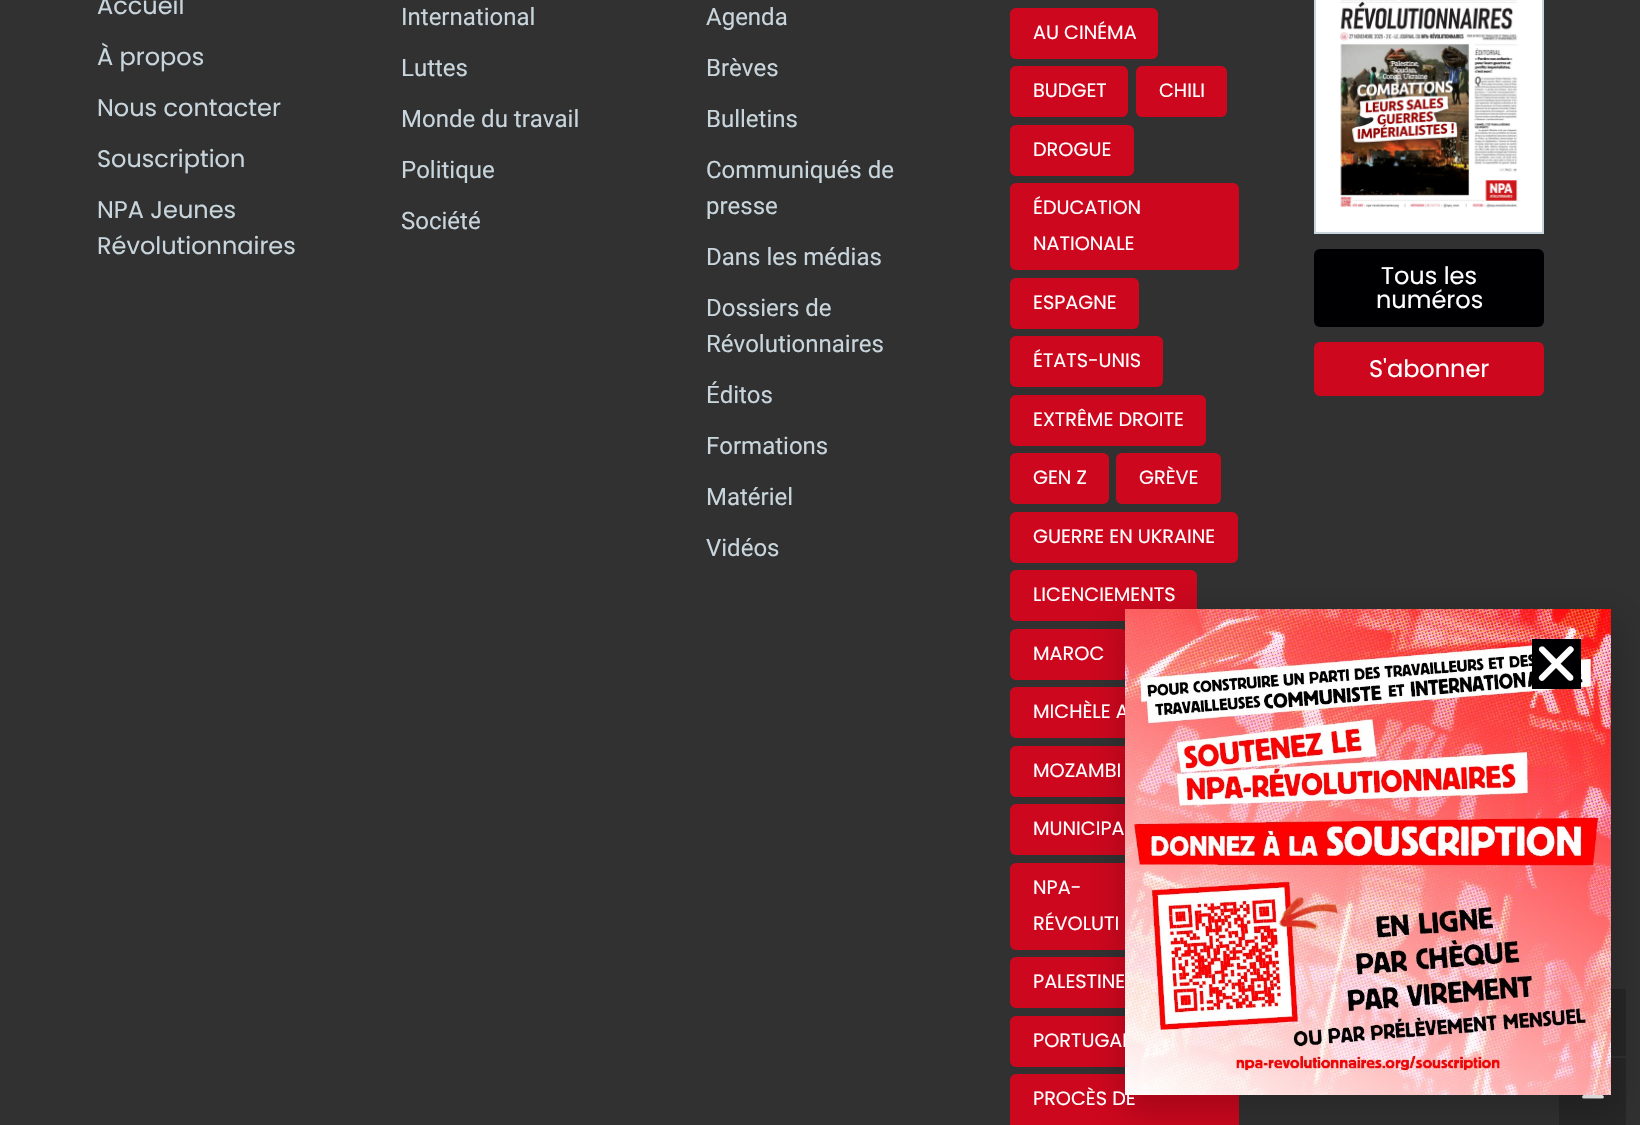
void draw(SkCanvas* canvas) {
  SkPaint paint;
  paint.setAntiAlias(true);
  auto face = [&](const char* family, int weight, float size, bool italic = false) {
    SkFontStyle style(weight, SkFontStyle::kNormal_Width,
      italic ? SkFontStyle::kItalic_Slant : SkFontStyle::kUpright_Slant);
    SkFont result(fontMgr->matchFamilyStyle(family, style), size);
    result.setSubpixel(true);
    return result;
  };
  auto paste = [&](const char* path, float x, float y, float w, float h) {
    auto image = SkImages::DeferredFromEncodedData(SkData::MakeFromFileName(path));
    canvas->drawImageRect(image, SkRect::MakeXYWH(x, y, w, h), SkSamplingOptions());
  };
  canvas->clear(0xff313131);
  paint.setColor(0xffcd071e);
  canvas->drawRoundRect(SkRect::MakeXYWH(1010, 8, 148, 51), 6, 6, paint);
  canvas->drawRoundRect(SkRect::MakeXYWH(1010, 66, 118, 51), 6, 6, paint);
  canvas->drawRoundRect(SkRect::MakeXYWH(1136, 66, 91, 51), 6, 6, paint);
  canvas->drawRoundRect(SkRect::MakeXYWH(1010, 125, 124, 51), 6, 6, paint);
  canvas->drawRoundRect(SkRect::MakeXYWH(1010, 183, 229, 87), 6, 6, paint);
  canvas->drawRoundRect(SkRect::MakeXYWH(1010, 278, 129, 51), 6, 6, paint);
  canvas->drawRoundRect(SkRect::MakeXYWH(1010, 336, 153, 51), 6, 6, paint);
  canvas->drawRoundRect(SkRect::MakeXYWH(1010, 395, 196, 51), 6, 6, paint);
  canvas->drawRoundRect(SkRect::MakeXYWH(1010, 453, 99, 51), 6, 6, paint);
  canvas->drawRoundRect(SkRect::MakeXYWH(1116, 453, 105, 51), 6, 6, paint);
  canvas->drawRoundRect(SkRect::MakeXYWH(1010, 512, 228, 51), 6, 6, paint);
  canvas->drawRoundRect(SkRect::MakeXYWH(1010, 570, 187, 51), 6, 6, paint);
  canvas->drawRoundRect(SkRect::MakeXYWH(1010, 629, 117, 51), 6, 6, paint);
  canvas->drawRoundRect(SkRect::MakeXYWH(1010, 687, 186, 51), 6, 6, paint);
  canvas->drawRoundRect(SkRect::MakeXYWH(1010, 746, 171, 51), 6, 6, paint);
  canvas->drawRoundRect(SkRect::MakeXYWH(1010, 804, 217, 51), 6, 6, paint);
  canvas->drawRoundRect(SkRect::MakeXYWH(1010, 863, 229, 87), 6, 6, paint);
  canvas->drawRoundRect(SkRect::MakeXYWH(1010, 957, 138, 51), 6, 6, paint);
  canvas->drawRoundRect(SkRect::MakeXYWH(1010, 1016, 142, 51), 6, 6, paint);
  canvas->drawRoundRect(SkRect::MakeXYWH(1010, 1074, 229, 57), 6, 6, paint);
  paint.setColor(0xffffffff);
  canvas->drawRect(SkRect::MakeXYWH(1315, -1, 228, 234), paint);
  paint.setStroke(true);
  paint.setStrokeWidth(2);
  paint.setColor(0xffc8d5dc);
  canvas->drawRect(SkRect::MakeXYWH(1315, -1, 228, 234), paint);
  paste("img/1.png", 1340, 0, 178, 208);
  paint.setStroke(false);
  paint.setColor(0xff000002);
  canvas->drawRoundRect(SkRect::MakeXYWH(1314, 249, 230, 78), 6, 6, paint);
  paint.setColor(0xffcd071e);
  canvas->drawRoundRect(SkRect::MakeXYWH(1314, 342, 230, 54), 6, 6, paint);
  paint.setColor(0xff272727);
  canvas->drawRect(SkRect::MakeXYWH(1611, 989, 15, 67), paint);
  canvas->drawRect(SkRect::MakeXYWH(1559, 1058, 67, 67), paint);
  paste("img/2.png", 1582, 1095, 22, 4);
  paint.setColor(0x33000000);
  paint.setMaskFilter(SkMaskFilter::MakeBlur(kNormal_SkBlurStyle, 17));
  canvas->drawRect(SkRect::MakeXYWH(1124, 617, 495, 495), paint);
  paint.setMaskFilter(nullptr);
  auto f0 = face("Poppins", 400, 24);
  paint.setColor(0xffc8d5dc);
  {
    const struct { const char* s; float x, y; } items[] = {
      {"Accueil", 97, 14},
      {"À propos", 97, 65},
      {"Nous contacter", 97, 116},
      {"Souscription", 97, 167},
      {"NPA Jeunes", 97, 218},
      {"Révolutionnaires", 97, 254},
    };
    for (auto [s, x, y] : items) {
      canvas->drawString(s, x, y, f0, paint);
    }
  }
  auto f1 = face("Roboto", 400, 24);
  {
    const struct { const char* s; float x, y; } items[] = {
      {"International", 401, 25},
      {"Luttes", 401, 76},
      {"Monde du travail", 401, 127},
      {"Politique", 401, 178},
      {"Société", 401, 229},
      {"Agenda", 706, 25},
      {"Brèves", 706, 76},
      {"Bulletins", 706, 127},
      {"Communiqués de", 706, 178},
      {"presse", 706, 214},
      {"Dans les médias", 706, 265},
      {"Dossiers de", 706, 316},
      {"Révolutionnaires", 706, 352},
      {"Éditos", 706, 403},
      {"Formations", 706, 454},
      {"Matériel", 706, 505},
      {"Vidéos", 706, 556},
    };
    for (auto [s, x, y] : items) {
      canvas->drawString(s, x, y, f1, paint);
    }
  }
  auto f2 = face("Poppins", 400, 19.25f);
  paint.setColor(0xffffffff);
  {
    const struct { const char* s; float x, y; } items[] = {
      {"AU CINÉMA", 1033, 39},
      {"BUDGET", 1033, 97},
      {"CHILI", 1159, 97},
      {"DROGUE", 1033, 156},
      {"ÉDUCATION", 1033, 214},
      {"NATIONALE", 1033, 250},
      {"ESPAGNE", 1033, 309},
      {"ÉTATS-UNIS", 1033, 367},
      {"EXTRÊME DROITE", 1033, 426},
      {"GEN Z", 1033, 484},
      {"GRÈVE", 1139, 484},
      {"GUERRE EN UKRAINE", 1033, 543},
      {"LICENCIEMENTS", 1033, 601},
      {"MAROC", 1033, 660},
      {"MICHÈLE A", 1033, 718},
      {"MOZAMBI", 1033, 777},
      {"MUNICIPA", 1033, 835},
      {"NPA-", 1033, 894},
      {"RÉVOLUTI", 1033, 930},
      {"PALESTINE", 1033, 988},
      {"PORTUGAL", 1033, 1047},
      {"PROCÈS DE", 1033, 1105},
    };
    for (auto [s, x, y] : items) {
      canvas->drawString(s, x, y, f2, paint);
    }
  }
  {
    const struct { const char* s; float x, y; } items[] = {
      {"Tous les", 1381, 284},
      {"numéros", 1376, 308},
      {"S'abonner", 1369, 377},
    };
    for (auto [s, x, y] : items) {
      canvas->drawString(s, x, y, f0, paint);
    }
  }
  paste("img/3.png", 1125, 609, 486, 486);
  paint.setColor(0xff000002);
  canvas->drawRect(SkRect::MakeXYWH(1532, 639, 49, 50), paint);
  paste("img/4.png", 1538, 646, 36, 35);
}
